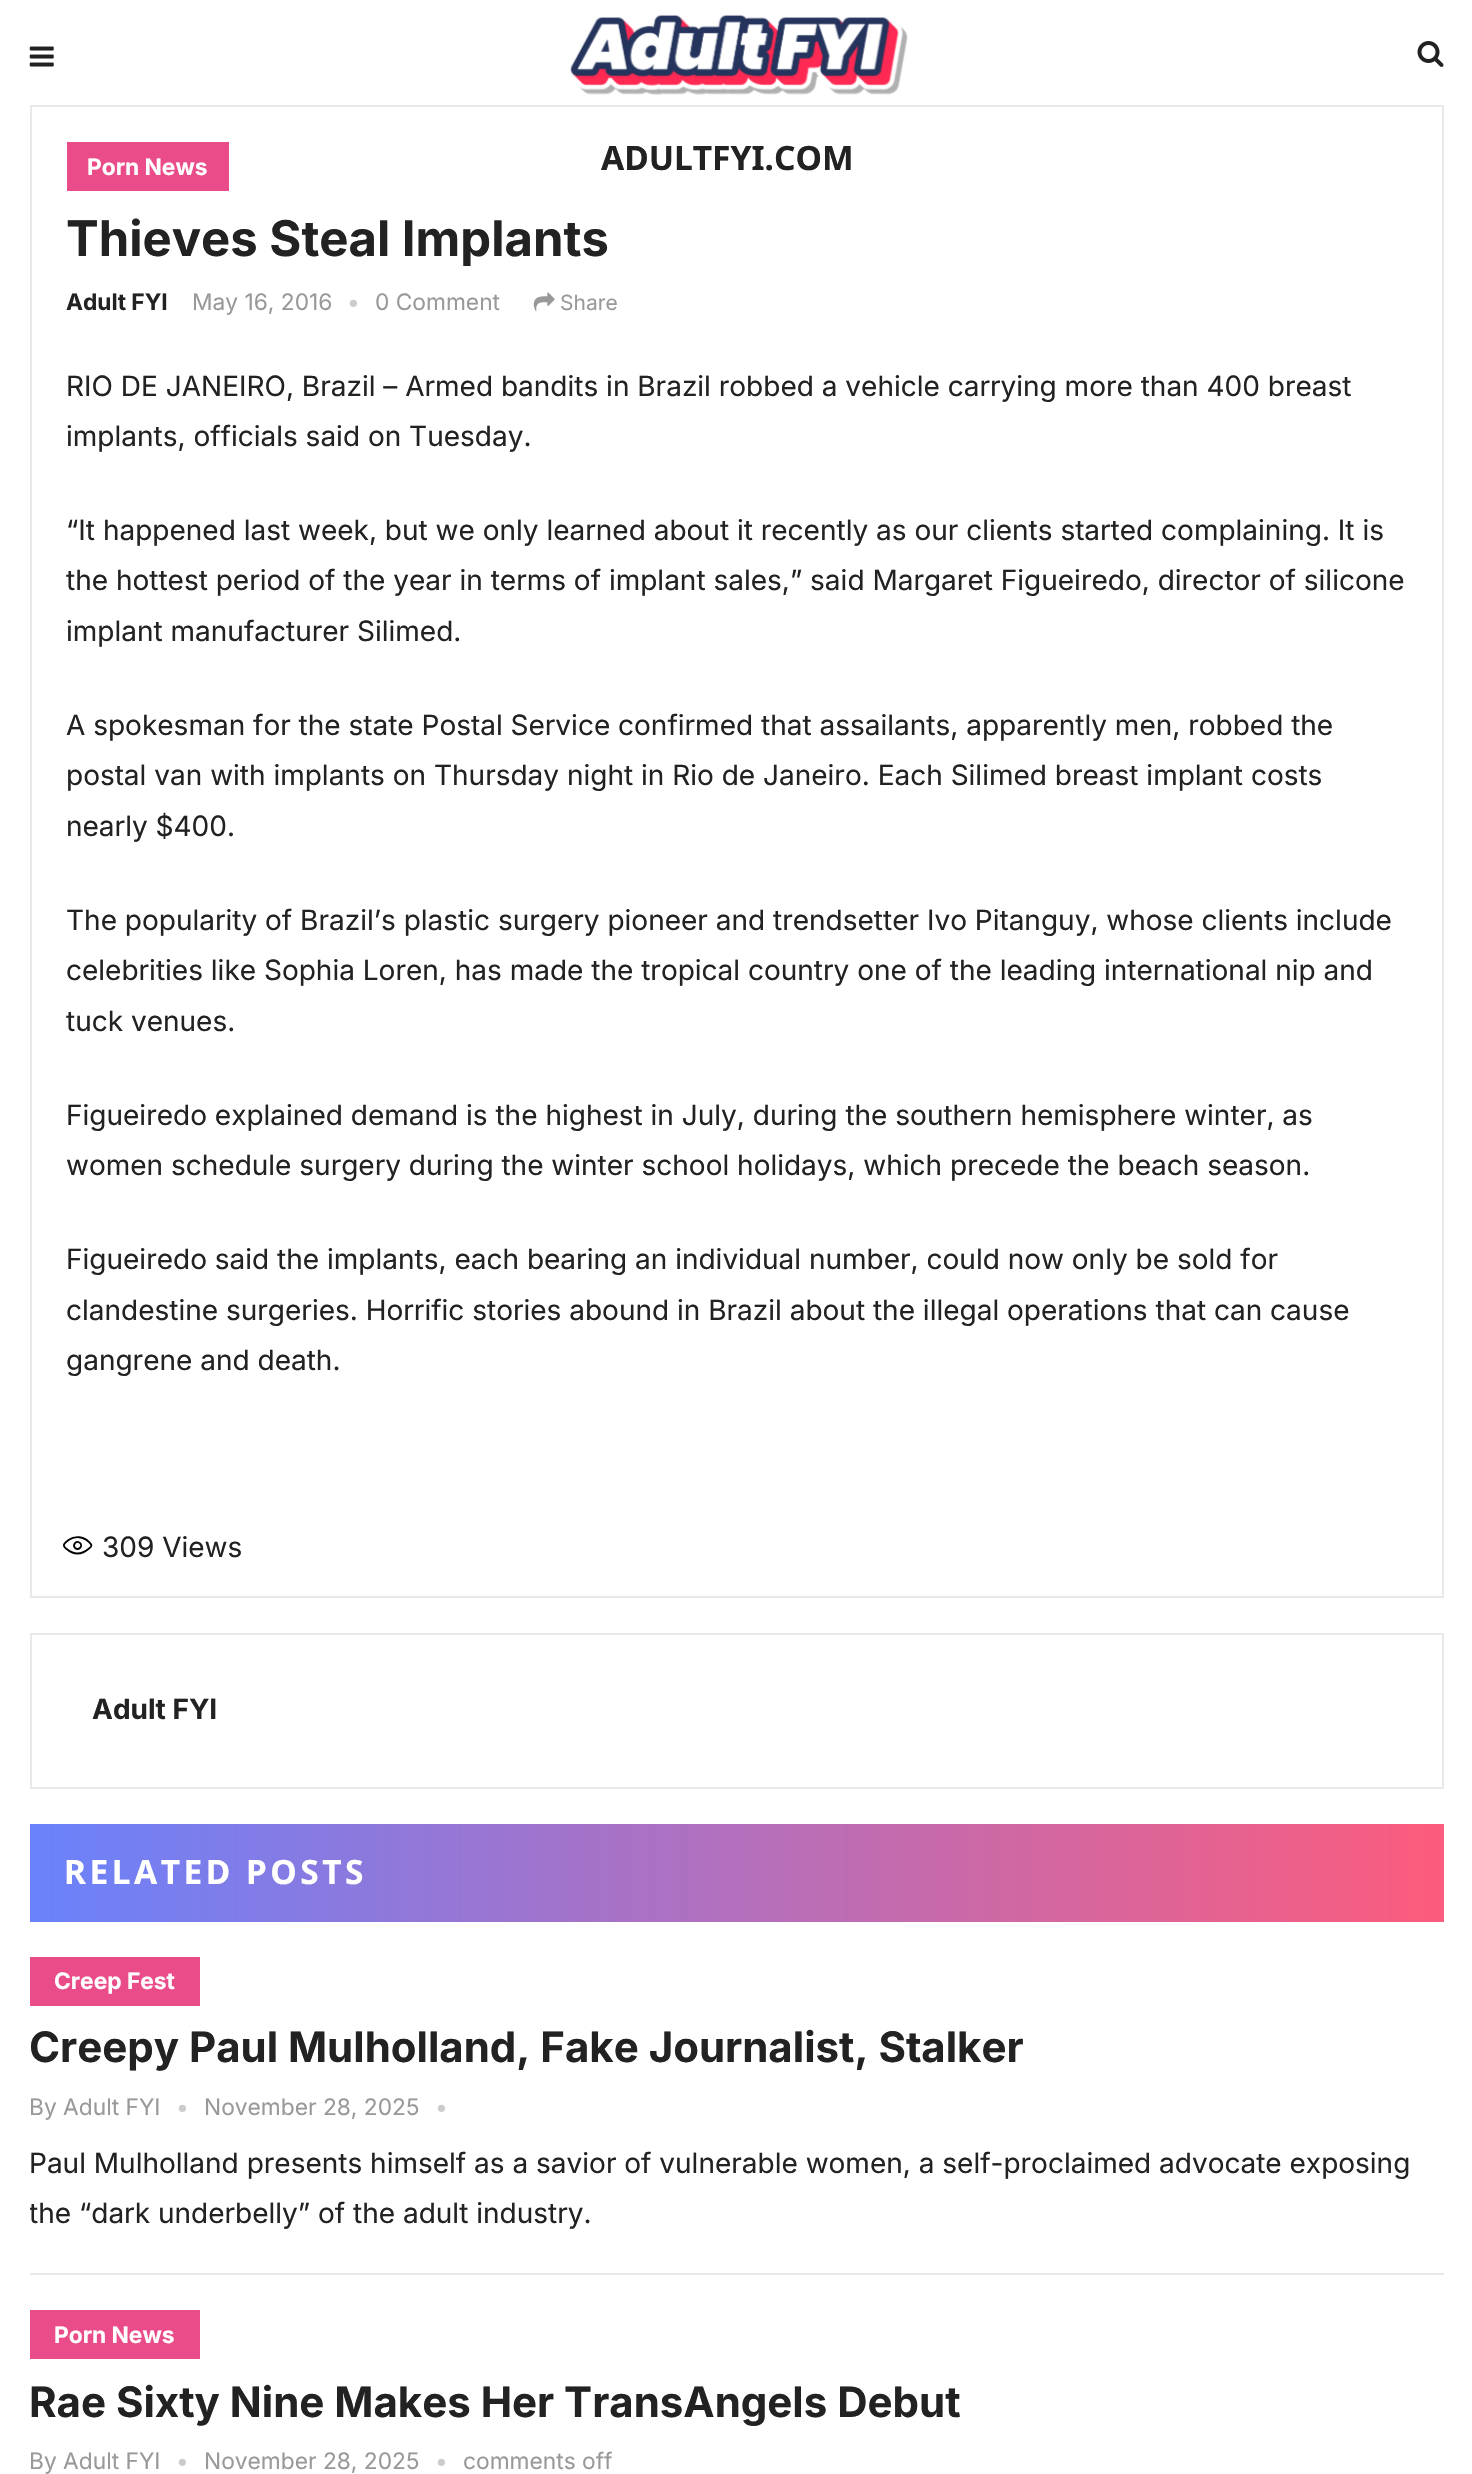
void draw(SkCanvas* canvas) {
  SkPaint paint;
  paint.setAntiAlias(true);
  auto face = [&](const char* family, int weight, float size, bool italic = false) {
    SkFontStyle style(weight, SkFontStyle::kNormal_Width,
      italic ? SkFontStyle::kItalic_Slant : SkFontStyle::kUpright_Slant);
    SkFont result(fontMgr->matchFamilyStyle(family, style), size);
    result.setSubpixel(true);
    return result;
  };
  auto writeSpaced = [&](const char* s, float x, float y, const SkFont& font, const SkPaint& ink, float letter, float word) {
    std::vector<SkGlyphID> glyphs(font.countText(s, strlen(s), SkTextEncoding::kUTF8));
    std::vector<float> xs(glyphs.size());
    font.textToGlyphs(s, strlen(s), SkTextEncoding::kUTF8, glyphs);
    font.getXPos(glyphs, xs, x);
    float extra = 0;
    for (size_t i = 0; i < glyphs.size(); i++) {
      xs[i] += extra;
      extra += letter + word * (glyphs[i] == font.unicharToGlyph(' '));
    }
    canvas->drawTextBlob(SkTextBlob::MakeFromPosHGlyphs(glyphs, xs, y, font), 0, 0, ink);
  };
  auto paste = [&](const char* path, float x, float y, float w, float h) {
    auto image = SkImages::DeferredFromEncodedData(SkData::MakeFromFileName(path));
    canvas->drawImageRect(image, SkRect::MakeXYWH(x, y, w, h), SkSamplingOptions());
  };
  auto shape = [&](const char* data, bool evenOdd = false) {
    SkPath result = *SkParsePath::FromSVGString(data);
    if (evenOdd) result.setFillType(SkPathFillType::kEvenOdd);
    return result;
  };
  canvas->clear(0xffffffff);
  paste("img/1.png", 29, 46, 25, 21);
  paste("img/2.png", 1417, 41, 27, 26);
  paste("img/3.png", 570, 14, 338, 81);
  paint.setStroke(true);
  paint.setStrokeWidth(2);
  paint.setColor(0xffe9e9e9);
  canvas->drawRect(SkRect::MakeXYWH(31, 106, 1412, 1491), paint);
  paint.setStroke(false);
  paint.setColor(0xffea4c89);
  canvas->drawRect(SkRect::MakeXYWH(67, 142, 162, 49), paint);
  paste("img/4.png", 533, 292, 22, 20);
  paint.setStroke(true);
  paint.setStrokeWidth(1.8f);
  paint.setColor(0xff000000);
  canvas->drawPath(shape("M89 1542C92 1545 92.5 1546 89 1548.5C85.5 1551.5 82 1553.5 77.5 1553.5C73 1553.5 69.5 1551.5 66 1548.5C63.5 1546.5 63 1545 65.5 1542.5L68.5 1540C75 1535.5 83.5 1536.5 89 1542ZM80 1543C83.5 1546 78.5 1551 75 1548C72 1544.5 77 1539.5 80 1543Z"), paint);
  paint.setStrokeWidth(2);
  paint.setColor(0xffe9e9e9);
  canvas->drawRect(SkRect::MakeXYWH(31, 1634, 1412, 154), paint);
  paint.setStroke(false);
  {
    const SkColor colors[] = {0xff6a82fb, 0xfffc5c7d};
    const float stops[] = {0, 1};
    const SkPoint ends[] = {{30, 1873}, {1444, 1873}};
    paint.setShader(SkGradientShader::MakeLinear(ends, colors, stops, 2, SkTileMode::kClamp));
    paint.setAlpha(255);
  }
  canvas->drawRect(SkRect::MakeXYWH(30, 1824, 1414, 98), paint);
  paint.setShader(nullptr);
  {
    const struct { float x, y, w, h; SkColor color; } items[] = {
      {30, 2273, 1414, 2, 0xffe9e9e9},
      {30, 1957, 170, 49, 0xffea4c89},
      {30, 2310, 170, 49, 0xffea4c89},
    };
    for (auto [x, y, w, h, color] : items) {
      paint.setColor(color);
      canvas->drawRect(SkRect::MakeXYWH(x, y, w, h), paint);
    }
  }
  auto f0 = face("Noto Sans", 700, 33.5f);
  paint.setColor(0xff222222);
  canvas->drawString("ADULTFYI.COM", 601, 170, f0, paint);
  auto f1 = face("Inter", 700, 22.75f);
  paint.setColor(0xffffffff);
  canvas->drawString("Porn News", 87, 175, f1, paint);
  auto f2 = face("Inter", 700, 49);
  paint.setColor(0xff222222);
  canvas->drawString("Thieves Steal Implants", 66, 256, f2, paint);
  canvas->drawString("Adult FYI", 66, 310, f1, paint);
  auto f3 = face("Inter", 400, 22.75f);
  paint.setColor(0xff999999);
  canvas->drawString("May 16, 2016", 192, 310, f3, paint);
  paint.setColor(0xffcccccc);
  canvas->drawString("•", 347, 310, f3, paint);
  paint.setColor(0xff999999);
  canvas->drawString("0 Comment", 375, 310, f3, paint);
  auto f4 = face("Inter", 400, 21);
  canvas->drawString("Share", 560, 310, f4, paint);
  auto f5 = face("Inter", 400, 28);
  paint.setColor(0xff222222);
  {
    const struct { const char* s; float x, y; } items[] = {
      {"RIO DE JANEIRO, Brazil – Armed bandits in Brazil robbed a vehicle carrying more than 400 breast", 66, 396},
      {"implants, officials said on Tuesday.", 66, 446},
      {"“It happened last week, but we only learned about it recently as our clients started complaining. It is", 66, 540},
      {"the hottest period of the year in terms of implant sales,” said Margaret Figueiredo, director of silicone", 66, 590},
      {"implant manufacturer Silimed.", 66, 641},
      {"A spokesman for the state Postal Service confirmed that assailants, apparently men, robbed the", 66, 735},
      {"postal van with implants on Thursday night in Rio de Janeiro. Each Silimed breast implant costs", 66, 785},
      {"nearly $400.", 66, 836},
      {"The popularity of Brazil’s plastic surgery pioneer and trendsetter Ivo Pitanguy, whose clients include", 66, 930},
      {"celebrities like Sophia Loren, has made the tropical country one of the leading international nip and", 66, 980},
      {"tuck venues.", 66, 1031},
      {"Figueiredo explained demand is the highest in July, during the southern hemisphere winter, as", 66, 1125},
      {"women schedule surgery during the winter school holidays, which precede the beach season.", 66, 1175},
      {"Figueiredo said the implants, each bearing an individual number, could now only be sold for", 66, 1269},
      {"clandestine surgeries. Horrific stories abound in Brazil about the illegal operations that can cause", 66, 1320},
      {"gangrene and death.", 66, 1370},
      {"309 Views", 102, 1557},
    };
    for (auto [s, x, y] : items) {
      canvas->drawString(s, x, y, f5, paint);
    }
  }
  auto f6 = face("Inter", 700, 28);
  canvas->drawString("Adult FYI", 92, 1719, f6, paint);
  paint.setColor(0xffffffff);
  writeSpaced("RELATED POSTS", 64, 1884, f0, paint, 3.5f, 0);
  canvas->drawString("Creep Fest", 54, 1989, f1, paint);
  auto f7 = face("Inter", 700, 42);
  paint.setColor(0xff222222);
  canvas->drawString("Creepy Paul Mulholland, Fake Journalist, Stalker", 29, 2062, f7, paint);
  paint.setColor(0xff999999);
  canvas->drawString("By Adult FYI", 29, 2115, f3, paint);
  paint.setColor(0xffcccccc);
  canvas->drawString("•", 176, 2115, f3, paint);
  paint.setColor(0xff999999);
  canvas->drawString("November 28, 2025", 204, 2115, f3, paint);
  paint.setColor(0xffcccccc);
  canvas->drawString("•", 435, 2115, f3, paint);
  paint.setColor(0xff222222);
  canvas->drawString("Paul Mulholland presents himself as a savior of vulnerable women, a self-proclaimed advocate exposing", 29, 2173, f5, paint);
  canvas->save();
  canvas->clipRect(SkRect::MakeXYWH(30, 2139, 1414, 99));
  canvas->drawString("the “dark underbelly” of the adult industry.", 29, 2223, f5, paint);
  canvas->restore();
  paint.setColor(0xffffffff);
  canvas->drawString("Porn News", 54, 2343, f1, paint);
  paint.setColor(0xff222222);
  canvas->drawString("Rae Sixty Nine Makes Her TransAngels Debut", 29, 2417, f7, paint);
  paint.setColor(0xff999999);
  canvas->drawString("By Adult FYI", 29, 2469, f3, paint);
  paint.setColor(0xffcccccc);
  canvas->drawString("•", 176, 2469, f3, paint);
  paint.setColor(0xff999999);
  canvas->drawString("November 28, 2025", 204, 2469, f3, paint);
  paint.setColor(0xffcccccc);
  canvas->drawString("•", 435, 2469, f3, paint);
  paint.setColor(0xff999999);
  canvas->drawString("comments off", 463, 2469, f3, paint);
}
